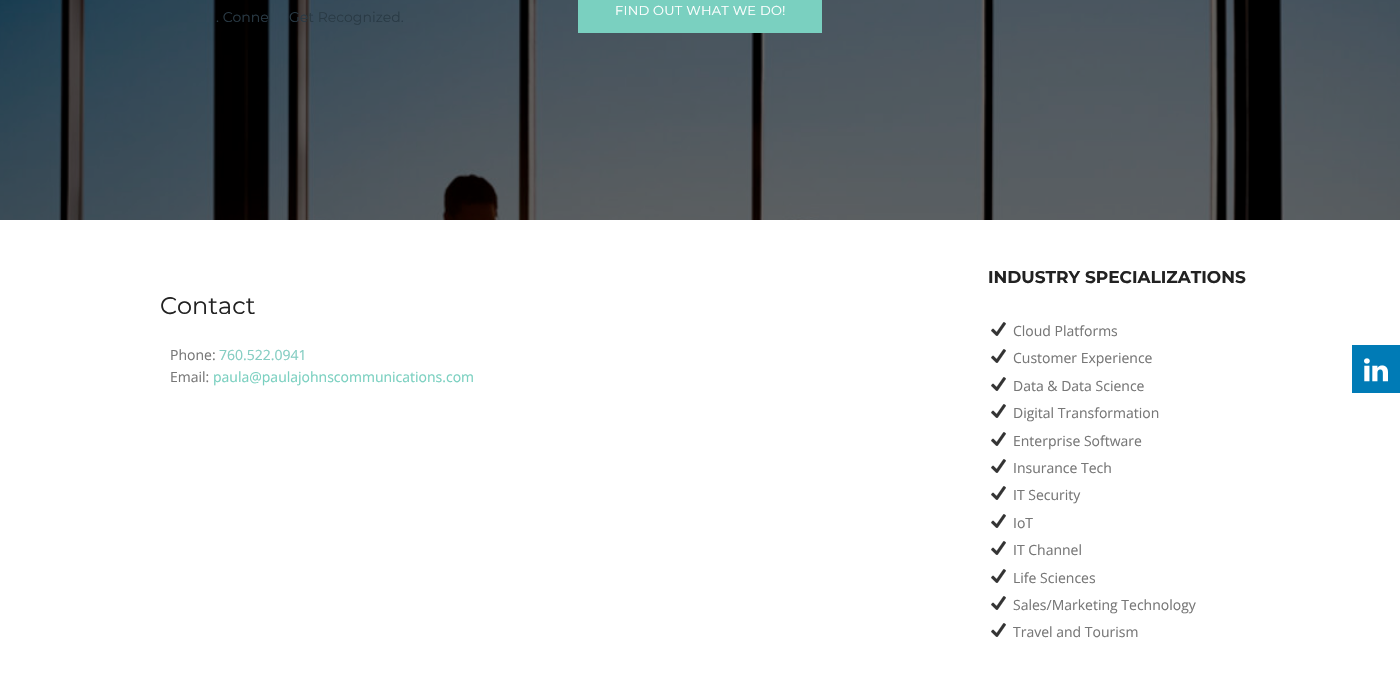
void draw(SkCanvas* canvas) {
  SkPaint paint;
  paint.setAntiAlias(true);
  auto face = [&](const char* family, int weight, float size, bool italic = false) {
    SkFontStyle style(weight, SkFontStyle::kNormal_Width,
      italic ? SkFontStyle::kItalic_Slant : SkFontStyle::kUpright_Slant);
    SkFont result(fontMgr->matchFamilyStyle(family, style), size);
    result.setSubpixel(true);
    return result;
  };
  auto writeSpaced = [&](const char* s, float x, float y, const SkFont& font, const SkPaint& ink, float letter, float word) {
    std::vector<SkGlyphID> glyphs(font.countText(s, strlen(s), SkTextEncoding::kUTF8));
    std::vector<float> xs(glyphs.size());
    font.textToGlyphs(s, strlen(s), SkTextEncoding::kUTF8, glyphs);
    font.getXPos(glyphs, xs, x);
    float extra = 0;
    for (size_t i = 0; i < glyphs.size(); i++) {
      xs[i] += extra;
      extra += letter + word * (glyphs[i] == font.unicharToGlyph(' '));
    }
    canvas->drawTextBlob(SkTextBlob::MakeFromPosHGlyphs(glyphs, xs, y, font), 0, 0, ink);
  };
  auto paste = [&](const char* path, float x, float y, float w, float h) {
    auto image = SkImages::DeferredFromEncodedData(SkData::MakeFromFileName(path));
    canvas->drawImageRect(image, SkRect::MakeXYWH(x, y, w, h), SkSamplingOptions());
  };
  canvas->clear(0xffffffff);
  paste("img/1.png", 0, 0, 1400, 220);
  paint.setColor(0xff7ad0c0);
  canvas->drawRect(SkRect::MakeXYWH(578, 0, 244, 33), paint);
  paste("img/2.png", 991, 322, 15, 14);
  paste("img/2.png", 991, 349, 15, 14);
  paste("img/2.png", 991, 377, 15, 14);
  paste("img/2.png", 991, 404, 15, 14);
  paste("img/2.png", 991, 432, 15, 14);
  paste("img/2.png", 991, 459, 15, 14);
  paste("img/2.png", 991, 486, 15, 14);
  paste("img/2.png", 991, 514, 15, 14);
  paste("img/2.png", 991, 541, 15, 14);
  paste("img/2.png", 991, 569, 15, 14);
  paste("img/2.png", 991, 596, 15, 14);
  paste("img/2.png", 991, 623, 15, 14);
  paint.setColor(0xff007bb6);
  canvas->drawRect(SkRect::MakeXYWH(1352, 345, 48, 48), paint);
  paste("img/3.png", 1364, 358, 24, 24);
  auto f0 = face("Montserrat", 400, 14);
  paint.setColor(0xff293a45);
  canvas->drawString(". Conne", 216, 22, f0, paint);
  canvas->drawString("Get Recognized.", 289, 22, f0, paint);
  auto f1 = face("Montserrat", 400, 13);
  paint.setColor(0xffffffff);
  writeSpaced("FIND OUT WHAT WE DO!", 615, 15, f1, paint, 0.25f, 0);
  auto f2 = face("Montserrat", 400, 24);
  paint.setColor(0xff222222);
  canvas->drawString("Contact", 160, 314, f2, paint);
  auto f3 = face("Open Sans", 400, 14);
  paint.setColor(0xff777777);
  canvas->drawString("Phone:", 170, 360, f3, paint);
  paint.setColor(0xff84cdc2);
  canvas->drawString("760.522.0941", 219, 360, f3, paint);
  paint.setColor(0xff777777);
  canvas->drawString("Email:", 170, 382, f3, paint);
  paint.setColor(0xff7ad0c0);
  canvas->drawString("paula@paulajohnscommunications.com", 213, 382, f3, paint);
  auto f4 = face("Montserrat", 700, 17);
  paint.setColor(0xff222222);
  canvas->drawString("INDUSTRY SPECIALIZATIONS", 988, 283, f4, paint);
  paint.setColor(0xff777777);
  {
    const struct { const char* s; float x, y; } items[] = {
      {"Cloud Platforms", 1013, 336},
      {"Customer Experience", 1013, 363},
      {"Data & Data Science", 1013, 391},
      {"Digital Transformation", 1013, 418},
      {"Enterprise Software", 1013, 446},
      {"Insurance Tech", 1013, 473},
      {"IT Security", 1013, 500},
      {"IoT", 1013, 528},
      {"IT Channel", 1013, 555},
      {"Life Sciences", 1013, 583},
      {"Sales/Marketing Technology", 1013, 610},
      {"Travel and Tourism", 1013, 637},
    };
    for (auto [s, x, y] : items) {
      canvas->drawString(s, x, y, f3, paint);
    }
  }
}
